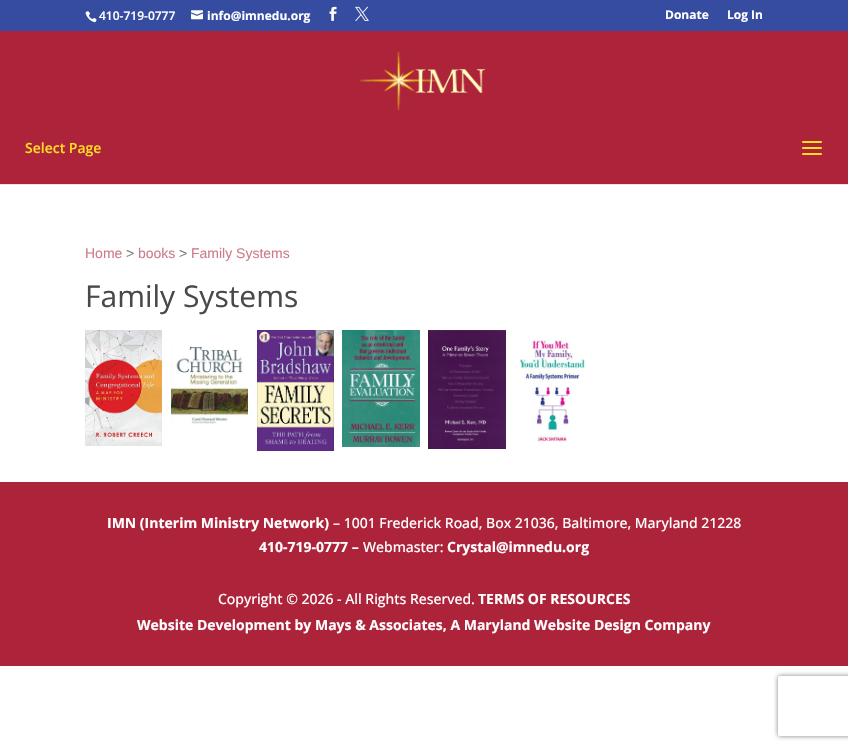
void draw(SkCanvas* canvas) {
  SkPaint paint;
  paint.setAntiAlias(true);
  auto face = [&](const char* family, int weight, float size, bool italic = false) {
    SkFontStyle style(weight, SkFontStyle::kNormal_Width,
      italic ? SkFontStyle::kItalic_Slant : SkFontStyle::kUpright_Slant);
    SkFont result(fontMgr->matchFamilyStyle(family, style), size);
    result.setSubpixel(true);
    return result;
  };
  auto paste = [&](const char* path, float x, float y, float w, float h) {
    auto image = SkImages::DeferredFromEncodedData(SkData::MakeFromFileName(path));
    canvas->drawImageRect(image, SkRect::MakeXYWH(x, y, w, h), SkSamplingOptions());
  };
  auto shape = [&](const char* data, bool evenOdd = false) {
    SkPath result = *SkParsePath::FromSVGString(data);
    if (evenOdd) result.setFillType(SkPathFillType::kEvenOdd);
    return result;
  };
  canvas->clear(0xffffffff);
  paint.setColor(0xff364ca0);
  canvas->drawRect(SkRect::MakeXYWH(0, 0, 848, 31), paint);
  paste("img/1.png", 85, 11, 12, 12);
  paste("img/2.png", 191, 10, 12, 10);
  paste("img/3.png", 329, 6, 8, 15);
  paste("img/4.png", 355, 6, 14, 15);
  paint.setColor(0xffe6e6e6);
  canvas->drawRect(SkRect::MakeXYWH(0, 184, 848, 1), paint);
  paint.setColor(0xffad233a);
  canvas->drawRect(SkRect::MakeXYWH(0, 31, 848, 153), paint);
  paste("img/5.png", 359, 51, 127, 60);
  paste("img/6.png", 802, 141, 20, 14);
  paste("img/7.png", 85, 330, 77, 116);
  paste("img/8.png", 171, 346, 77, 78);
  paste("img/9.png", 257, 330, 77, 121);
  paste("img/10.png", 342, 330, 78, 117);
  paste("img/11.png", 428, 330, 78, 119);
  paste("img/12.png", 519, 337, 67, 105);
  canvas->drawRect(SkRect::MakeXYWH(0, 482, 848, 184), paint);
  canvas->save();
  canvas->clipPath(shape("M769 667H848V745H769ZM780 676H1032C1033 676 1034 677 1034 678V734C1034 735 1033 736 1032 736H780C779 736 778 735 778 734V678C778 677 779 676 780 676Z", true), true);
  paint.setColor(0xff808080);
  paint.setMaskFilter(SkMaskFilter::MakeBlur(kNormal_SkBlurStyle, 2.5f));
  canvas->drawRoundRect(SkRect::MakeXYWH(778, 676, 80, 60), 2, 2, paint);
  paint.setMaskFilter(nullptr);
  canvas->restore();
  auto f0 = face("Open Sans", 600, 12);
  paint.setColor(0xffffffff);
  canvas->drawString("410-719-0777", 99, 20, f0, paint);
  auto f1 = face("Open Sans", 700, 12);
  {
    const struct { const char* s; float x, y; } items[] = {
      {"info@imnedu.org", 207, 20},
      {"Donate", 665, 19},
      {"Log In", 727, 19},
    };
    for (auto [s, x, y] : items) {
      canvas->drawString(s, x, y, f1, paint);
    }
  }
  auto f2 = face("Open Sans", 600, 14);
  paint.setColor(0xfffedf24);
  canvas->drawString("Select Page", 25, 153, f2, paint);
  auto f3 = face("Liberation Sans", 400, 14);
  paint.setColor(0xffce7b89);
  canvas->drawString("Home", 85, 258, f3, paint);
  paint.setColor(0xff7b7b7b);
  canvas->drawString(">", 126, 258, f3, paint);
  paint.setColor(0xffce7b89);
  canvas->drawString("books", 138, 258, f3, paint);
  paint.setColor(0xff7b7b7b);
  canvas->drawString(">", 179, 258, f3, paint);
  paint.setColor(0xffce7b89);
  canvas->drawString("Family Systems", 191, 258, f3, paint);
  auto f4 = face("Open Sans", 400, 30);
  paint.setColor(0xff484949);
  canvas->drawString("Family Systems", 85, 307, f4, paint);
  auto f5 = face("Open Sans", 700, 14);
  paint.setColor(0xffffffff);
  canvas->drawString("IMN (Interim Ministry Network)", 107, 528, f5, paint);
  auto f6 = face("Open Sans", 500, 14);
  canvas->drawString("– 1001 Frederick Road, Box 21036, Baltimore, Maryland 21228", 333, 528, f6, paint);
  canvas->drawString("410-719-0777 –", 259, 552, f5, paint);
  canvas->drawString("Webmaster:", 363, 552, f6, paint);
  canvas->drawString("Crystal@imnedu.org", 447, 552, f5, paint);
  canvas->drawString("Copyright © 2026 - All Rights Reserved.", 218, 604, f6, paint);
  canvas->drawString("TERMS OF RESOURCES", 478, 604, f5, paint);
  canvas->drawString("Website Development by Mays & Associates, A Maryland Website Design Company", 137, 630, f5, paint);
}
